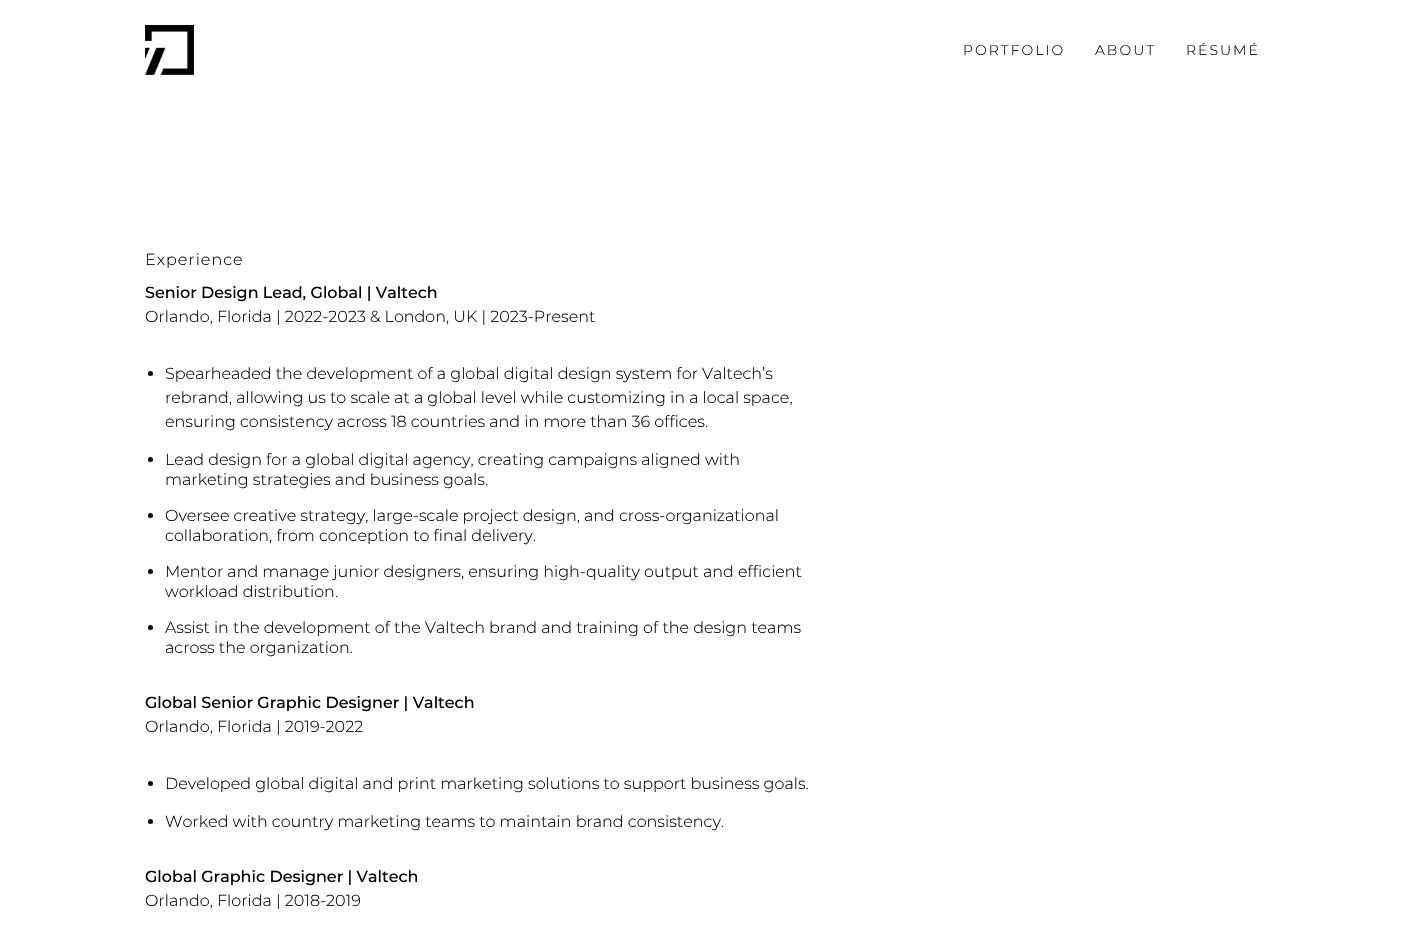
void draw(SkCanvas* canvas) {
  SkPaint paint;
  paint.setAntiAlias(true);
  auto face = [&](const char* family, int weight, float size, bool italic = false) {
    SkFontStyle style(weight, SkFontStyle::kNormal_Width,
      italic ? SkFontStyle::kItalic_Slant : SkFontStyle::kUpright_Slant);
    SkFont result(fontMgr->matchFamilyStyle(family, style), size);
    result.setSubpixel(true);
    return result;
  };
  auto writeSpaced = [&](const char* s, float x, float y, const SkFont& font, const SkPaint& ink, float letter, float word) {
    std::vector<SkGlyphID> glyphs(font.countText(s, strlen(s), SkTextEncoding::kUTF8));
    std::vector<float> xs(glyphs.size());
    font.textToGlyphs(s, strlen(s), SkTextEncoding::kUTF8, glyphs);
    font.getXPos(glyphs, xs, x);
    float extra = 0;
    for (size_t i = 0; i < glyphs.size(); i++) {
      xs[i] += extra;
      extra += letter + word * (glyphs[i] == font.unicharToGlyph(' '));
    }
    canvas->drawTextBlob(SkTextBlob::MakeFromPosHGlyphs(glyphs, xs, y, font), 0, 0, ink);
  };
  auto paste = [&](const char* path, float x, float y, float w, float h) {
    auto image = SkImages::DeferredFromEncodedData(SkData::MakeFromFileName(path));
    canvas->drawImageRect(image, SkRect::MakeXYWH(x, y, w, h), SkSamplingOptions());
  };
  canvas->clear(0xffffffff);
  paste("img/1.png", 145, 25, 49, 50);
  paint.setColor(0xff000000);
  canvas->drawCircle(150.5f, 373.5f, 2.5f, paint);
  canvas->drawCircle(150.5f, 459.5f, 2.5f, paint);
  canvas->drawCircle(150.5f, 515.5f, 2.5f, paint);
  canvas->drawCircle(150.5f, 571.5f, 2.5f, paint);
  canvas->drawCircle(150.5f, 627.5f, 2.5f, paint);
  canvas->drawCircle(150.5f, 783.5f, 2.5f, paint);
  canvas->drawCircle(150.5f, 821.5f, 2.5f, paint);
  auto f0 = face("Montserrat", 300, 14);
  {
    const struct { const char* s; float x, y; } items[] = {
      {"PORTFOLIO", 963, 55},
      {"ABOUT", 1095, 55},
      {"RÉSUMÉ", 1186, 55},
    };
    for (auto [s, x, y] : items) {
      writeSpaced(s, x, y, f0, paint, 2, 0);
    }
  }
  auto f1 = face("Montserrat", 300, 16);
  writeSpaced("Experience", 145, 265, f1, paint, 1, 0);
  auto f2 = face("Montserrat", 500, 16);
  canvas->drawString("Senior Design Lead, Global | Valtech", 145, 298, f2, paint);
  {
    const struct { const char* s; float x, y; } items[] = {
      {"Orlando, Florida | 2022-2023 & London, UK | 2023-Present", 145, 322},
      {"Spearheaded the development of a global digital design system for Valtech’s", 165, 379},
      {"rebrand, allowing us to scale at a global level while customizing in a local space,", 165, 403},
      {"ensuring consistency across 18 countries and in more than 36 offices.", 165, 427},
      {"Lead design for a global digital agency, creating campaigns aligned with", 165, 465},
      {"marketing strategies and business goals.", 165, 485},
      {"Oversee creative strategy, large-scale project design, and cross-organizational", 165, 521},
      {"collaboration, from conception to final delivery.", 165, 541},
      {"Mentor and manage junior designers, ensuring high-quality output and efficient", 165, 577},
      {"workload distribution.", 165, 597},
      {"Assist in the development of the Valtech brand and training of the design teams", 165, 633},
      {"across the organization.", 165, 653},
    };
    for (auto [s, x, y] : items) {
      canvas->drawString(s, x, y, f1, paint);
    }
  }
  canvas->drawString("Global Senior Graphic Designer | Valtech", 145, 708, f2, paint);
  {
    const struct { const char* s; float x, y; } items[] = {
      {"Orlando, Florida | 2019-2022", 145, 732},
      {"Developed global digital and print marketing solutions to support business goals.", 165, 789},
      {"Worked with country marketing teams to maintain brand consistency.", 165, 827},
    };
    for (auto [s, x, y] : items) {
      canvas->drawString(s, x, y, f1, paint);
    }
  }
  canvas->drawString("Global Graphic Designer | Valtech", 145, 882, f2, paint);
  canvas->drawString("Orlando, Florida | 2018-2019", 145, 906, f1, paint);
}
